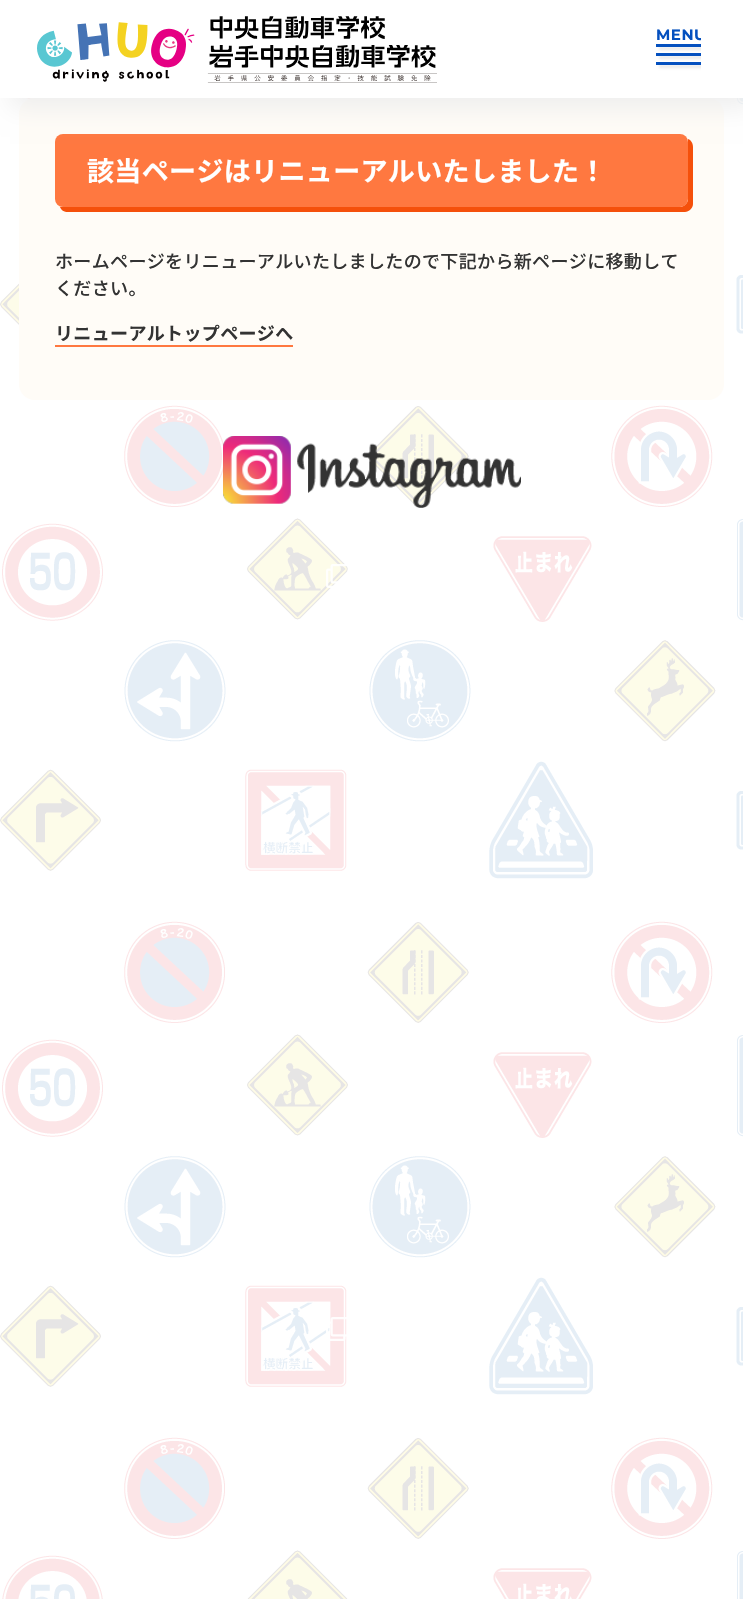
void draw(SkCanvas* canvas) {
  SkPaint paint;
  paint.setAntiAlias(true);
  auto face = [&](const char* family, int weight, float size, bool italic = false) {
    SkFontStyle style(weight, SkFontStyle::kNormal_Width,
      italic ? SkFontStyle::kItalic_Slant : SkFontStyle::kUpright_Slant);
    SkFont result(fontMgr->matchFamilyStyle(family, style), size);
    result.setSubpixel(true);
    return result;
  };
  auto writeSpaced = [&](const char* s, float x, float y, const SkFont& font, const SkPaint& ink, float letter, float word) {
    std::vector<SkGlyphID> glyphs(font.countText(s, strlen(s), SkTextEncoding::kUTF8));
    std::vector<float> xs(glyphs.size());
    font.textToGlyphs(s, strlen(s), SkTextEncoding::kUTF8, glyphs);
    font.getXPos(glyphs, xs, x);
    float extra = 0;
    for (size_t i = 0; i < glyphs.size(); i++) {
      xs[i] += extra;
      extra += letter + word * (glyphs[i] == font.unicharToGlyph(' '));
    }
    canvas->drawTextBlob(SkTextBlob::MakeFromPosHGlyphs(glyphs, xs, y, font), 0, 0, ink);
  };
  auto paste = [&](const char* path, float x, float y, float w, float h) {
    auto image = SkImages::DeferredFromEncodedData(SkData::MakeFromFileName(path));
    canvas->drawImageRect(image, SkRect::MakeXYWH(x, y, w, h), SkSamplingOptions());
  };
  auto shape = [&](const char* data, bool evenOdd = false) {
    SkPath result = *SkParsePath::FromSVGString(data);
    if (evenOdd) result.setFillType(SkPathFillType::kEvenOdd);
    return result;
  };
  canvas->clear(0xffffffff);
  paste("img/2.png", 0, 98, 743, 1501);
  paint.setColor(0xfffffcf7);
  canvas->drawRoundRect(SkRect::MakeXYWH(19, 98, 705, 302), 16, 16, paint);
  paint.setColor(0xfff5500b);
  canvas->drawPath(shape("M60 207C61 210 64 212 68 212H685C689 212 693 208 693 204V147C693 143 691 140 688 139V142V199C688 203 684 207 680 207H63Z"), paint);
  paint.setColor(0xffff7840);
  canvas->drawRoundRect(SkRect::MakeXYWH(55, 134, 633, 73), 8, 8, paint);
  paint.setColor(0xffeeeeee);
  paint.setMaskFilter(SkMaskFilter::MakeBlur(kNormal_SkBlurStyle, 12));
  canvas->drawRect(SkRect::MakeXYWH(10, 10, 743, 98), paint);
  paint.setMaskFilter(nullptr);
  paint.setColor(0xffffffff);
  canvas->drawRect(SkRect::MakeXYWH(0, 0, 743, 98), paint);
  paste("img/1.png", 37, 16, 400, 67);
  canvas->save();
  canvas->clipRect(SkRect::MakeXYWH(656, 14, 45, 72));
  paint.setColor(0x69bfbfbf);
  paint.setMaskFilter(SkMaskFilter::MakeBlur(kNormal_SkBlurStyle, 1.5f));
  canvas->drawRect(SkRect::MakeXYWH(659, 65, 45, 3), paint);
  paint.setMaskFilter(nullptr);
  canvas->restore();
  paint.setColor(0xff0450bf);
  canvas->drawRect(SkRect::MakeXYWH(656, 62, 45, 3), paint);
  canvas->save();
  canvas->clipRect(SkRect::MakeXYWH(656, 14, 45, 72));
  paint.setColor(0x69bfbfbf);
  paint.setMaskFilter(SkMaskFilter::MakeBlur(kNormal_SkBlurStyle, 1.5f));
  canvas->drawRect(SkRect::MakeXYWH(659, 47, 45, 3), paint);
  paint.setMaskFilter(nullptr);
  canvas->restore();
  paint.setColor(0xff0450bf);
  canvas->drawRect(SkRect::MakeXYWH(656, 44, 45, 3), paint);
  canvas->save();
  canvas->clipRect(SkRect::MakeXYWH(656, 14, 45, 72));
  paint.setColor(0x69bfbfbf);
  paint.setMaskFilter(SkMaskFilter::MakeBlur(kNormal_SkBlurStyle, 1.5f));
  canvas->drawRect(SkRect::MakeXYWH(659, 56, 45, 3), paint);
  paint.setMaskFilter(nullptr);
  canvas->restore();
  paint.setColor(0xff0450bf);
  canvas->drawRect(SkRect::MakeXYWH(656, 53, 45, 3), paint);
  paint.setColor(0xffff7840);
  canvas->drawRect(SkRect::MakeXYWH(55, 345, 238, 2), paint);
  paste("img/3.png", 223, 436, 298, 72);
  paste("img/4.png", 326, 564, 22, 24);
  paste("img/5.png", 326, 1317, 21, 24);
  canvas->save();
  canvas->clipRect(SkRect::MakeXYWH(656, 14, 45, 72));
  auto f0 = face("Montserrat", 700, 15);
  paint.setColor(0xff0450bf);
  writeSpaced("MENU", 656, 40, f0, paint, 0.5f, 0);
  canvas->restore();
  auto f1 = face("Noto Sans JP", 700, 27);
  paint.setColor(0xffffffff);
  writeSpaced("該当ページはリニューアルいたしました！", 87, 181, f1, paint, 0.35f, 0);
  auto f2 = face("Noto Sans JP", 500, 18);
  paint.setColor(0xff333333);
  writeSpaced("ホームページをリニューアルいたしましたので下記から新ページに移動して", 55, 268, f2, paint, 0.35f, 0);
  writeSpaced("ください。", 55, 295, f2, paint, 0.35f, 0);
  auto f3 = face("Noto Sans JP", 700, 18);
  writeSpaced("リニューアルトップページへ", 55, 340, f3, paint, 0.35f, 0);
}
